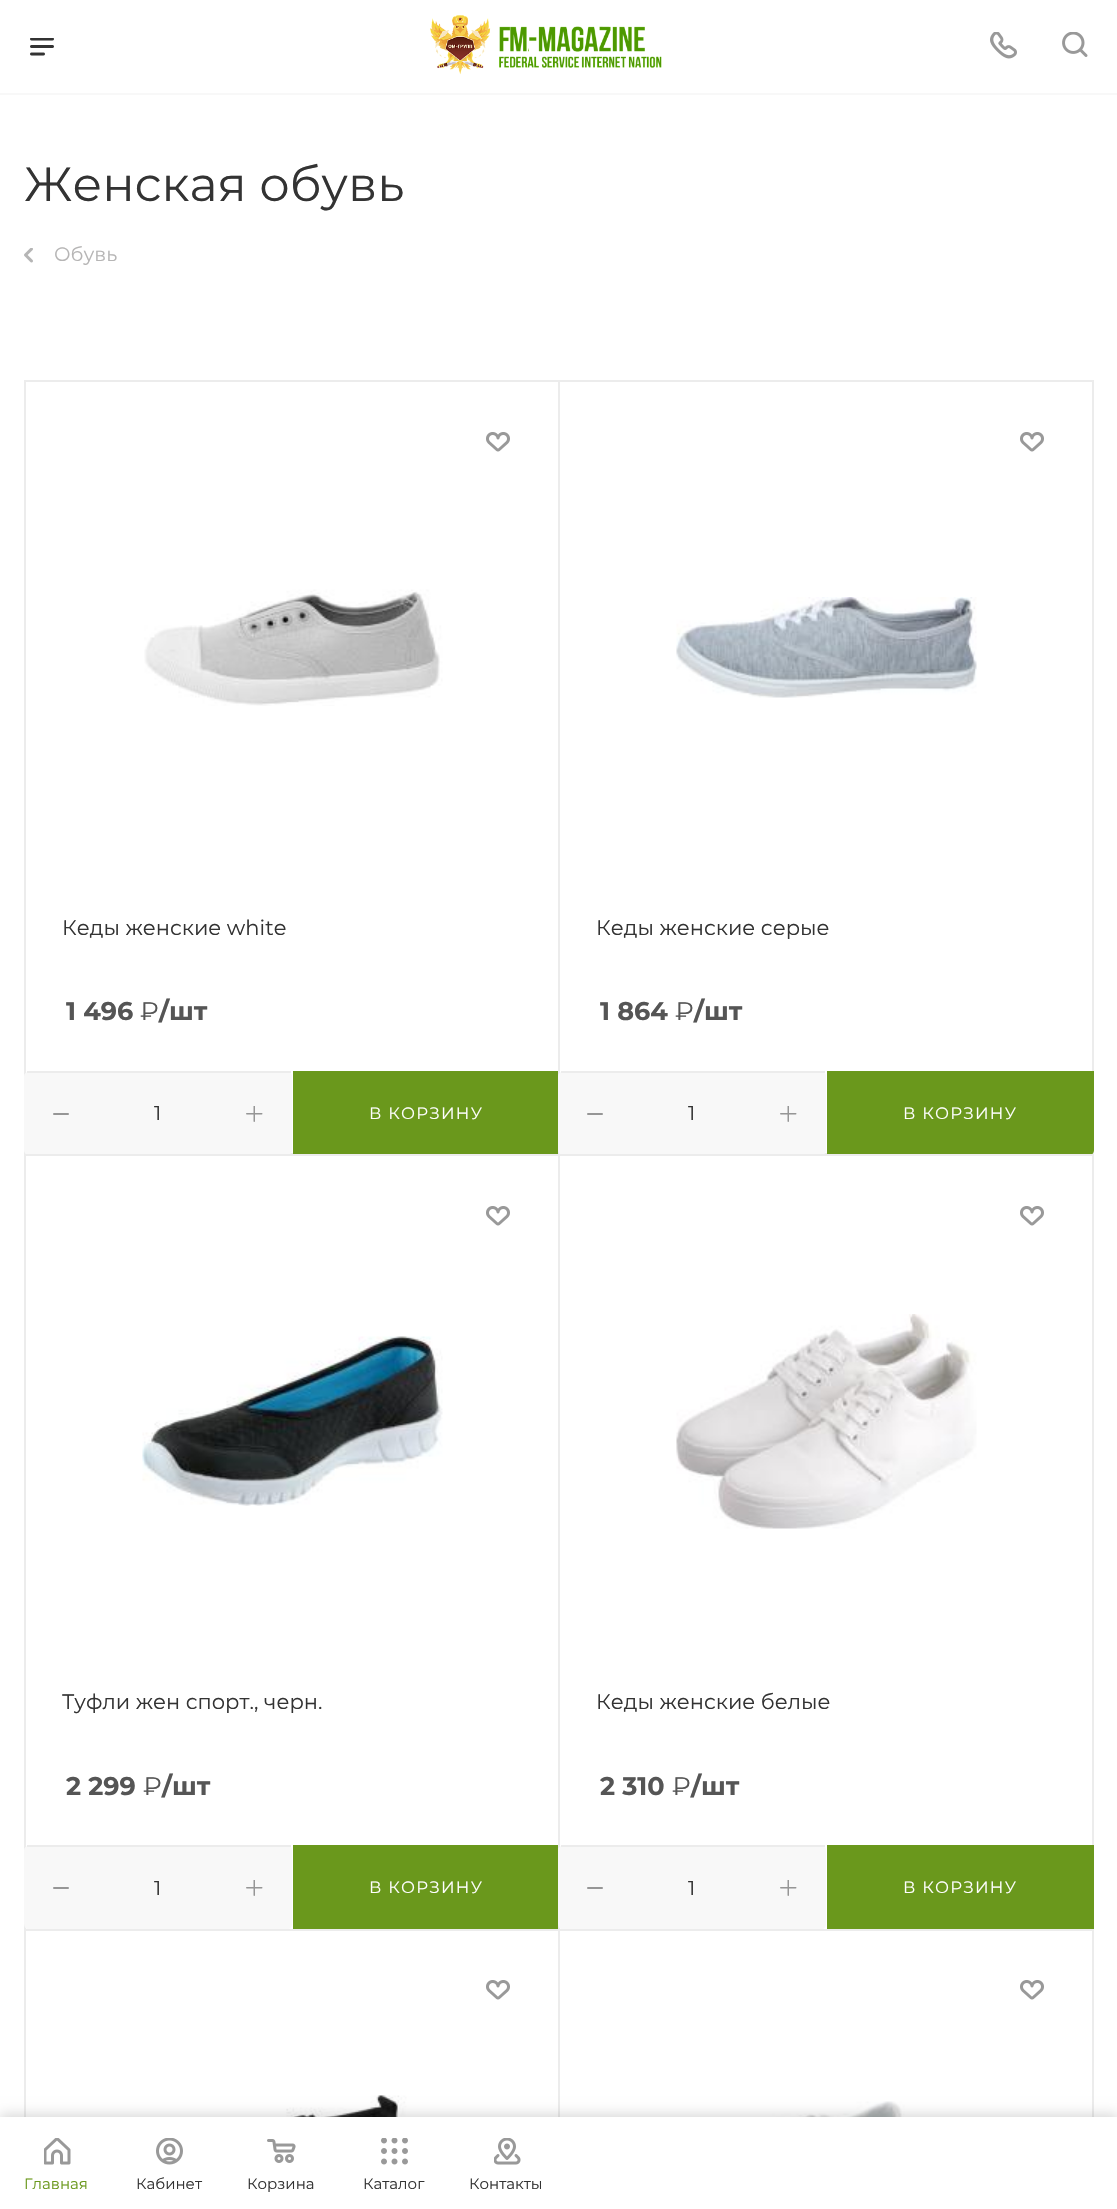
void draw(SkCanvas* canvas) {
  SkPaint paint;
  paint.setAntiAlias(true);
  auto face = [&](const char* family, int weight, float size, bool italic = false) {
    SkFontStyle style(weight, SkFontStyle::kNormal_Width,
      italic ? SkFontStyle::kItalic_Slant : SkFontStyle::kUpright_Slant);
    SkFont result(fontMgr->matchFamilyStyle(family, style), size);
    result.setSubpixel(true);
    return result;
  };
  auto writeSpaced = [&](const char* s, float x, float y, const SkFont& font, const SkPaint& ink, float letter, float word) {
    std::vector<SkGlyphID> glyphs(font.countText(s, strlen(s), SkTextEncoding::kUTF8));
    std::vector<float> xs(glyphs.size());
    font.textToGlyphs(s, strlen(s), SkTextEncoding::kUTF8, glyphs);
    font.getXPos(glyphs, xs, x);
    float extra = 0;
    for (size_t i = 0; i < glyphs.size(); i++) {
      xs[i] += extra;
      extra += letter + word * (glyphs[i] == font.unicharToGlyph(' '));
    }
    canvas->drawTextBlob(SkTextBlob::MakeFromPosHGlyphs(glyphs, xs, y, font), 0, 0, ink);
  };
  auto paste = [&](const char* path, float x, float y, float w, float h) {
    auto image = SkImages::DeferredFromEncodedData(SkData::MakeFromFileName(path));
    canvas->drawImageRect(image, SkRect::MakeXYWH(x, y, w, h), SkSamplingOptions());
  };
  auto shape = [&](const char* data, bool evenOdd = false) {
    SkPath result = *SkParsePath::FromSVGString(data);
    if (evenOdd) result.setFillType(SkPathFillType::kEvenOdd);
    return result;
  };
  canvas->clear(0xffffffff);
  paint.setColor(0xfff8f8f8);
  canvas->drawRect(SkRect::MakeXYWH(0, 93, 1117, 2), paint);
  paste("img/1.png", 30, 38, 24, 18);
  paste("img/2.png", 430, 15, 232, 60);
  paste("img/3.png", 990, 32, 27, 27);
  paste("img/4.png", 1062, 32, 26, 25);
  paste("img/5.png", 24, 248, 9, 15);
  paint.setStroke(true);
  paint.setStrokeWidth(2);
  paint.setColor(0xffececec);
  canvas->drawRect(SkRect::MakeXYWH(25, 381, 534, 773), paint);
  paste("img/6.png", 486, 432, 24, 20);
  paste("img/7.png", 144, 589, 299, 117);
  paint.setStroke(false);
  paint.setColor(0xfff8f8f8);
  canvas->drawPath(shape("M28 1072C26 1072 24 1074 24 1076V1150C24 1153 26 1155 29 1155H288C290 1155 292 1153 292 1150V1076C292 1074 290 1072 288 1072Z"), paint);
  paint.setColor(0xffececec);
  canvas->drawRect(SkRect::MakeXYWH(27, 1071, 264, 2), paint);
  paint.setColor(0xff969696);
  canvas->drawRoundRect(SkRect::MakeXYWH(53, 1113, 16, 2), 1, 1, paint);
  paste("img/8.png", 246, 1106, 17, 16);
  paint.setColor(0xff6a981c);
  canvas->drawRect(SkRect::MakeXYWH(293, 1073, 265, 81), paint);
  canvas->drawRect(SkRect::MakeXYWH(293, 1071, 267, 2), paint);
  paint.setStroke(true);
  paint.setColor(0xffececec);
  canvas->drawRect(SkRect::MakeXYWH(559, 381, 534, 773), paint);
  paste("img/6.png", 1020, 432, 24, 20);
  paste("img/9.png", 676, 597, 301, 101);
  paint.setStroke(false);
  paint.setColor(0xfff8f8f8);
  canvas->drawPath(shape("M562 1072C560 1072 558 1074 558 1076V1150C558 1153 560 1155 563 1155H822C824 1155 826 1153 826 1150V1076C826 1074 824 1072 822 1072Z"), paint);
  paint.setColor(0xffececec);
  canvas->drawRect(SkRect::MakeXYWH(561, 1071, 264, 2), paint);
  paint.setColor(0xff969696);
  canvas->drawRoundRect(SkRect::MakeXYWH(587, 1113, 16, 2), 1, 1, paint);
  paste("img/8.png", 780, 1106, 17, 16);
  canvas->save();
  canvas->clipPath(shape("M558 1071H1094V1150C1094 1153 1092 1155 1089 1155H563C560 1155 558 1153 558 1150Z"), true);
  paint.setColor(0xff6a981c);
  canvas->drawRect(SkRect::MakeXYWH(827, 1073, 267, 81), paint);
  canvas->restore();
  canvas->drawRect(SkRect::MakeXYWH(827, 1071, 267, 2), paint);
  paint.setStroke(true);
  paint.setColor(0xffececec);
  canvas->drawRect(SkRect::MakeXYWH(25, 1155, 534, 775), paint);
  paste("img/6.png", 486, 1206, 24, 20);
  paste("img/10.png", 142, 1336, 301, 170);
  paint.setStroke(false);
  paint.setColor(0xfff8f8f8);
  canvas->drawPath(shape("M28 1846H288C290 1846 292 1848 292 1850V1924C292 1927 290 1929 288 1929H28C26 1929 24 1927 24 1924V1850C24 1848 26 1846 28 1846Z"), paint);
  paint.setColor(0xffececec);
  canvas->drawRect(SkRect::MakeXYWH(27, 1845, 264, 2), paint);
  paint.setColor(0xff969696);
  canvas->drawRoundRect(SkRect::MakeXYWH(53, 1887, 16, 2), 1, 1, paint);
  paste("img/8.png", 246, 1880, 17, 16);
  paint.setColor(0xff6a981c);
  canvas->drawRect(SkRect::MakeXYWH(293, 1847, 265, 82), paint);
  canvas->drawRect(SkRect::MakeXYWH(293, 1845, 267, 2), paint);
  paint.setStroke(true);
  paint.setColor(0xffececec);
  canvas->drawRect(SkRect::MakeXYWH(559, 1155, 534, 775), paint);
  paste("img/6.png", 1020, 1206, 24, 20);
  paste("img/11.png", 676, 1314, 301, 215);
  paint.setStroke(false);
  paint.setColor(0xfff8f8f8);
  canvas->drawPath(shape("M562 1846H822C824 1846 826 1848 826 1850V1924C826 1927 824 1929 822 1929H562C560 1929 558 1927 558 1924V1850C558 1848 560 1846 562 1846Z"), paint);
  paint.setColor(0xffececec);
  canvas->drawRect(SkRect::MakeXYWH(561, 1845, 264, 2), paint);
  paint.setColor(0xff969696);
  canvas->drawRoundRect(SkRect::MakeXYWH(587, 1887, 16, 2), 1, 1, paint);
  paste("img/8.png", 780, 1880, 17, 16);
  paint.setColor(0xff6a981c);
  canvas->drawRect(SkRect::MakeXYWH(827, 1845, 267, 84), paint);
  paint.setStroke(true);
  paint.setColor(0xffececec);
  canvas->drawRect(SkRect::MakeXYWH(25, 1930, 534, 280), paint);
  paste("img/6.png", 486, 1980, 24, 20);
  paste("img/12.png", 142, 2095, 301, 22);
  canvas->drawRect(SkRect::MakeXYWH(559, 1930, 534, 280), paint);
  paste("img/6.png", 1020, 1980, 24, 20);
  paste("img/13.png", 676, 2101, 300, 16);
  paint.setStroke(false);
  paint.setColor(0x26000000);
  paint.setMaskFilter(SkMaskFilter::MakeBlur(kNormal_SkBlurStyle, 6));
  canvas->drawRect(SkRect::MakeXYWH(0, 2114, 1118, 93), paint);
  paint.setMaskFilter(nullptr);
  paint.setColor(0xffffffff);
  canvas->drawRect(SkRect::MakeXYWH(0, 2117, 1117, 92), paint);
  paste("img/14.png", 44, 2138, 27, 27);
  paste("img/15.png", 156, 2138, 27, 27);
  paste("img/16.png", 267, 2139, 29, 24);
  paste("img/17.png", 381, 2138, 27, 27);
  paste("img/18.png", 494, 2138, 27, 27);
  auto f0 = face("Montserrat", 400, 48);
  paint.setColor(0xff333333);
  canvas->drawString("Женская обувь", 24, 201, f0, paint);
  auto f1 = face("Montserrat", 400, 19.5f);
  paint.setColor(0xffb6b5b5);
  canvas->drawString("Обувь", 54, 261, f1, paint);
  auto f2 = face("Montserrat", 400, 21);
  paint.setColor(0xff333333);
  canvas->drawString("Кеды женские white", 62, 935, f2, paint);
  auto f3 = face("Montserrat", 700, 25.5f);
  paint.setColor(0xff555555);
  canvas->drawString("1 496", 66, 1020, f3, paint);
  auto f4 = face("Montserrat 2", 400, 25.5f);
  canvas->drawString("₽", 140, 1020, f4, paint);
  canvas->drawString("/шт", 159, 1020, f3, paint);
  auto f5 = face("Montserrat", 400, 20);
  paint.setColor(0xff333333);
  canvas->drawString("1", 154, 1120, f5, paint);
  auto f6 = face("Montserrat", 400, 16.5f);
  paint.setColor(0xffffffff);
  writeSpaced("В КОРЗИНУ", 369, 1119, f6, paint, 1.25f, 0);
  paint.setColor(0xff333333);
  canvas->drawString("Кеды женские серые", 596, 935, f2, paint);
  paint.setColor(0xff555555);
  canvas->drawString("1 864", 600, 1020, f3, paint);
  canvas->drawString("₽", 675, 1020, f4, paint);
  canvas->drawString("/шт", 694, 1020, f3, paint);
  paint.setColor(0xff333333);
  canvas->drawString("1", 688, 1120, f5, paint);
  paint.setColor(0xffffffff);
  writeSpaced("В КОРЗИНУ", 903, 1119, f6, paint, 1.25f, 0);
  paint.setColor(0xff333333);
  canvas->drawString("Туфли жен спорт., черн.", 62, 1709, f2, paint);
  paint.setColor(0xff555555);
  canvas->drawString("2 299", 66, 1795, f3, paint);
  canvas->drawString("₽", 143, 1795, f4, paint);
  canvas->drawString("/шт", 162, 1795, f3, paint);
  paint.setColor(0xff333333);
  canvas->drawString("1", 154, 1895, f5, paint);
  paint.setColor(0xffffffff);
  writeSpaced("В КОРЗИНУ", 369, 1893, f6, paint, 1.25f, 0);
  paint.setColor(0xff333333);
  canvas->drawString("Кеды женские белые", 596, 1709, f2, paint);
  paint.setColor(0xff555555);
  canvas->drawString("2 310", 600, 1795, f3, paint);
  canvas->drawString("₽", 672, 1795, f4, paint);
  canvas->drawString("/шт", 691, 1795, f3, paint);
  paint.setColor(0xff333333);
  canvas->drawString("1", 688, 1895, f5, paint);
  paint.setColor(0xffffffff);
  writeSpaced("В КОРЗИНУ", 903, 1893, f6, paint, 1.25f, 0);
  auto f7 = face("Montserrat", 400, 15);
  paint.setColor(0xff6a981c);
  canvas->drawString("Главная", 24, 2189, f7, paint);
  paint.setColor(0xff333333);
  {
    const struct { const char* s; float x, y; } items[] = {
      {"Кабинет", 136, 2189},
      {"Корзина", 247, 2189},
      {"Каталог", 363, 2189},
      {"Контакты", 469, 2189},
    };
    for (auto [s, x, y] : items) {
      canvas->drawString(s, x, y, f7, paint);
    }
  }
}
